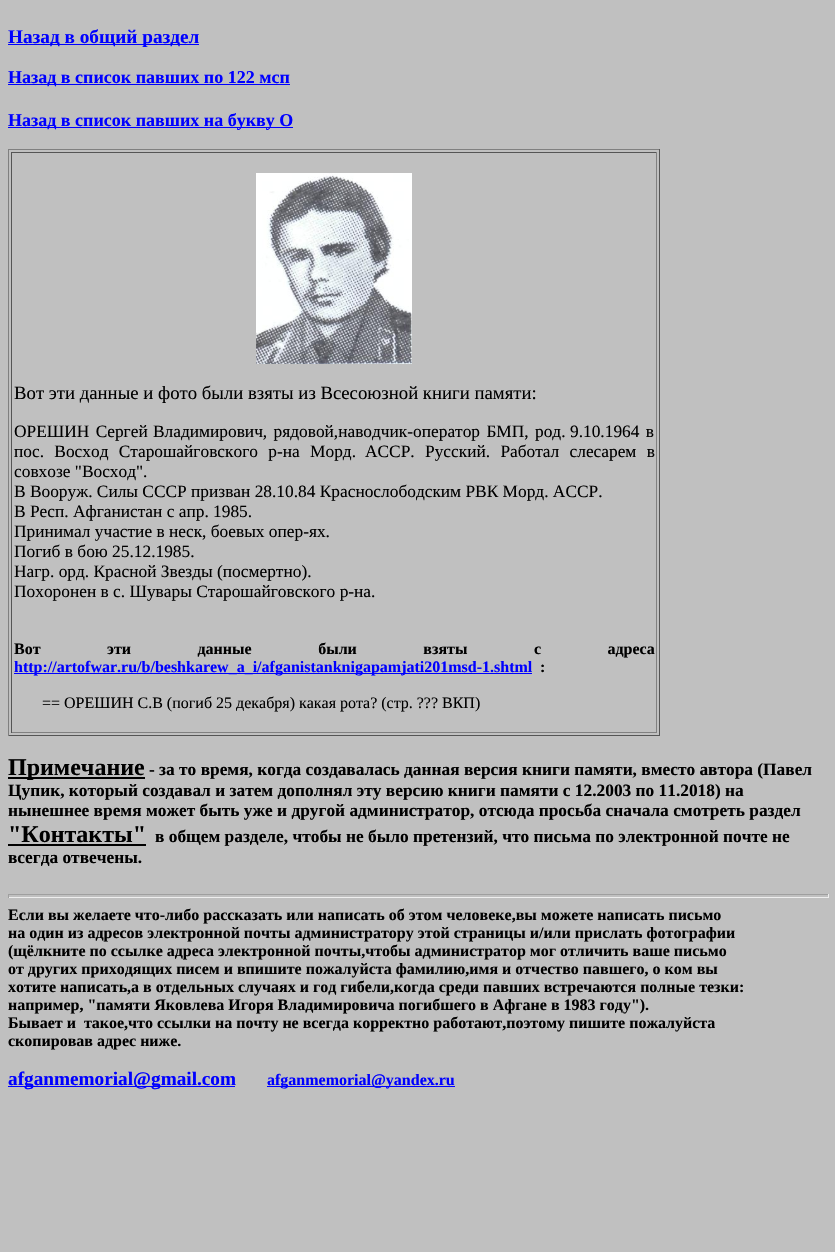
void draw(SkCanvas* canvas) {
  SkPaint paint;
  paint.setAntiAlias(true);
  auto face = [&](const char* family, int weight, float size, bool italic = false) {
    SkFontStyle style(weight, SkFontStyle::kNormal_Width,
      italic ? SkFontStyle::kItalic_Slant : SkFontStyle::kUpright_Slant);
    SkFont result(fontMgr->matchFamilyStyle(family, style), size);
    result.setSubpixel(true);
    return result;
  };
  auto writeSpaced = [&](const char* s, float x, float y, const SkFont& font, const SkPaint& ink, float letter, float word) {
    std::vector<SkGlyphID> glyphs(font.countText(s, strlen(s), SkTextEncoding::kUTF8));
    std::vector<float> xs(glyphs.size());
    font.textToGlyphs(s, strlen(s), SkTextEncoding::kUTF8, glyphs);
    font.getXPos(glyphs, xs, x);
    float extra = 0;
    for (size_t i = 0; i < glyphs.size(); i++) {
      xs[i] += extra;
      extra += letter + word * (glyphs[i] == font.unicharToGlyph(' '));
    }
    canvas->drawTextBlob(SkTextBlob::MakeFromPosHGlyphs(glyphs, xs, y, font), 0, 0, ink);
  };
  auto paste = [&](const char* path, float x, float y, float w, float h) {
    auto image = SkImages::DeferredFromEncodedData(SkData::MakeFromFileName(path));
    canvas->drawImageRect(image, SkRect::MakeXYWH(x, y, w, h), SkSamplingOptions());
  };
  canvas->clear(0xffc0c0c0);
  {
    const struct { float x, y, w, h; SkColor color; } items[] = {
      {8, 44, 191, 1, 0xff0000ff},
      {8, 84, 282, 1, 0xff0000ff},
      {8, 127, 285, 1, 0xff0000ff},
      {8, 149, 652, 1, 0xff808080},
      {659, 149, 1, 587, 0xff555555},
      {8, 735, 652, 1, 0xff555555},
      {8, 149, 1, 587, 0xff808080},
      {11, 152, 646, 1, 0xff555555},
      {656, 152, 1, 581, 0xff808080},
      {11, 732, 646, 1, 0xff808080},
      {11, 152, 1, 581, 0xff555555},
    };
    for (auto [x, y, w, h, color] : items) {
      paint.setColor(color);
      canvas->drawRect(SkRect::MakeXYWH(x, y, w, h), paint);
    }
  }
  paste("img/1.png", 256, 173, 156, 191);
  {
    const struct { float x, y, w, h; SkColor color; } items[] = {
      {14, 673, 518, 1, 0xff0000ff},
      {8, 777, 137, 2, 0xff000000},
      {8, 844, 138, 2, 0xff000000},
      {8, 894, 821, 1, 0xff9f9f9f},
      {828, 894, 1, 4, 0xffeeeeee},
      {8, 897, 821, 1, 0xffeeeeee},
      {8, 894, 1, 4, 0xff9f9f9f},
      {8, 1086, 227, 1, 0xff0000ff},
      {267, 1086, 188, 1, 0xff0000ff},
    };
    for (auto [x, y, w, h, color] : items) {
      paint.setColor(color);
      canvas->drawRect(SkRect::MakeXYWH(x, y, w, h), paint);
    }
  }
  auto f0 = face("Liberation Serif", 700, 19.25f);
  canvas->drawString("Назад в общий раздел", 8, 43, f0, paint);
  auto f1 = face("Liberation Serif", 700, 18);
  canvas->drawString("Назад в список павших по 122 мсп", 8, 83, f1, paint);
  canvas->drawString("Назад в список павших на букву О", 8, 126, f1, paint);
  auto f2 = face("Liberation Serif", 400, 18.75f);
  paint.setColor(0xff000000);
  canvas->drawString("Вот эти данные и фото были взяты из Всесоюзной книги памяти:", 14, 399, f2, paint);
  auto f3 = face("Liberation Serif", 400, 17.35f);
  {
    const struct { const char* s; float x, y; } items[] = {
      {"ОРЕШИН Сергей", 14, 437},
      {"Владимирович, рядовой,наводчик-оператор БМП, род.", 153, 437},
      {"9.10.1964 в", 570, 437},
    };
    for (auto [s, x, y] : items) {
      writeSpaced(s, x, y, f3, paint, 0, 2);
    }
  }
  writeSpaced("пос. Восход Старошайговского р-на Морд.", 14, 457, f3, paint, 0, 6);
  writeSpaced("АССР. Русский. Работал слесарем в", 365, 457, f3, paint, 0, 6);
  {
    const struct { const char* s; float x, y; } items[] = {
      {"совхозе \"Восход\".", 14, 477},
      {"В Вооруж. Силы СССР призван 28.10.84 Краснослободским РВК Морд. АССР.", 14, 497},
      {"В Респ. Афганистан с апр. 1985.", 14, 517},
      {"Принимал участие в неск, боевых опер-ях.", 14, 537},
      {"Погиб в бою 25.12.1985.", 14, 557},
      {"Нагр. орд. Красной Звезды (посмертно).", 14, 577},
      {"Похоронен в с. Шувары Старошайговского р-на.", 14, 597},
    };
    for (auto [s, x, y] : items) {
      canvas->drawString(s, x, y, f3, paint);
    }
  }
  auto f4 = face("Liberation Serif", 700, 16);
  writeSpaced("Вот эти данные были взяты с адреса", 14, 654, f4, paint, 0, 62.5f);
  paint.setColor(0xff0000ff);
  canvas->drawString("http://artofwar.ru/b/beshkarew_a_i/afganistanknigapamjati201msd-1.shtml", 14, 672, f4, paint);
  paint.setColor(0xff000000);
  canvas->drawString(":", 540, 672, f4, paint);
  auto f5 = face("Liberation Serif", 400, 16);
  canvas->drawString("== ОРЕШИН С.В (погиб 25 декабря) какая рота? (стр. ?\077? ВКП)", 42, 708, f5, paint);
  auto f6 = face("Liberation Serif", 700, 24);
  canvas->drawString("Примечание", 8, 775, f6, paint);
  auto f7 = face("Liberation Serif", 700, 17.35f);
  {
    const struct { const char* s; float x, y; } items[] = {
      {"- за то время, когда создавалась данная версия книги памяти, вместо автора (Павел", 149, 775},
      {"Цупик, который создавал и затем дополнял эту версию книги памяти с 12.2003 по 11.2018) на", 8, 796},
      {"нынешнее время может быть уже и другой администратор, отсюда просьба сначала смотреть раздел", 8, 816},
    };
    for (auto [s, x, y] : items) {
      canvas->drawString(s, x, y, f7, paint);
    }
  }
  canvas->drawString("\"Контакты\"", 8, 842, f6, paint);
  canvas->drawString("в общем разделе, чтобы не было претензий, что письма по электронной почте не", 155, 842, f7, paint);
  canvas->drawString("всегда отвечены.", 8, 863, f7, paint);
  {
    const struct { const char* s; float x, y; } items[] = {
      {"Если вы желаете что-либо рассказать или написать об этом человеке,вы можете написать письмо", 8, 920},
      {"на один из адресов электронной почты администратору этой страницы и/или прислать фотографии", 8, 938},
      {"(щёлкните по ссылке адреса электронной почты,чтобы администратор мог отличить ваше письмо", 8, 956},
      {"от других приходящих писем и впишите пожалуйста фамилию,имя и отчество павшего, о ком вы", 8, 974},
      {"хотите написать,а в отдельных случаях и год гибели,когда среди павших встречаются полные тезки:", 8, 992},
      {"например, \"памяти Яковлева Игоря Владимировича погибшего в Афгане в 1983 году\").", 8, 1010},
      {"Бывает и  такое,что ссылки на почту не всегда корректно работают,поэтому пишите пожалуйста", 8, 1028},
      {"скопировав адрес ниже.", 8, 1046},
    };
    for (auto [s, x, y] : items) {
      canvas->drawString(s, x, y, f4, paint);
    }
  }
  paint.setColor(0xff0000ff);
  canvas->drawString("afganmemorial@gmail.com", 8, 1085, f0, paint);
  canvas->drawString("afganmemorial@yandex.ru", 267, 1085, f4, paint);
}
